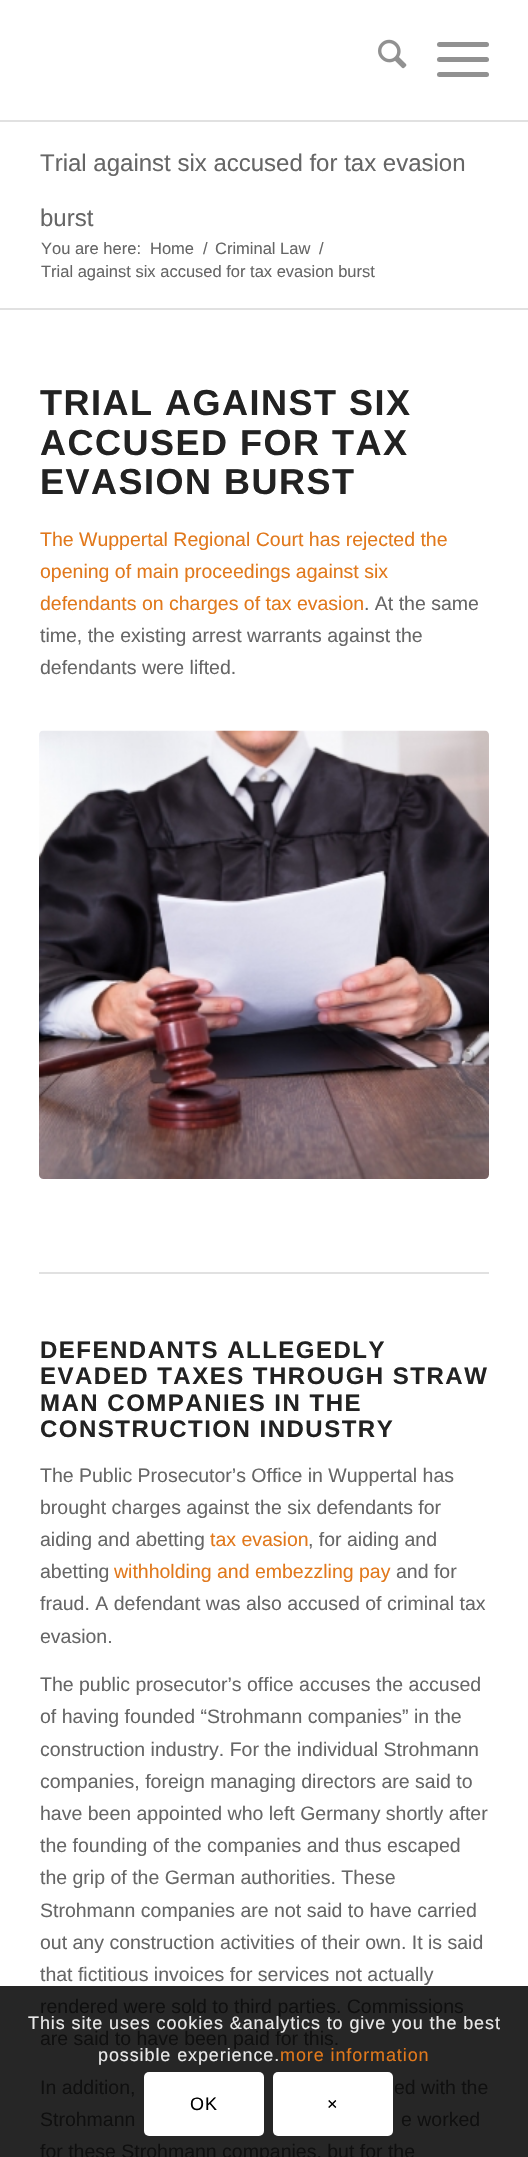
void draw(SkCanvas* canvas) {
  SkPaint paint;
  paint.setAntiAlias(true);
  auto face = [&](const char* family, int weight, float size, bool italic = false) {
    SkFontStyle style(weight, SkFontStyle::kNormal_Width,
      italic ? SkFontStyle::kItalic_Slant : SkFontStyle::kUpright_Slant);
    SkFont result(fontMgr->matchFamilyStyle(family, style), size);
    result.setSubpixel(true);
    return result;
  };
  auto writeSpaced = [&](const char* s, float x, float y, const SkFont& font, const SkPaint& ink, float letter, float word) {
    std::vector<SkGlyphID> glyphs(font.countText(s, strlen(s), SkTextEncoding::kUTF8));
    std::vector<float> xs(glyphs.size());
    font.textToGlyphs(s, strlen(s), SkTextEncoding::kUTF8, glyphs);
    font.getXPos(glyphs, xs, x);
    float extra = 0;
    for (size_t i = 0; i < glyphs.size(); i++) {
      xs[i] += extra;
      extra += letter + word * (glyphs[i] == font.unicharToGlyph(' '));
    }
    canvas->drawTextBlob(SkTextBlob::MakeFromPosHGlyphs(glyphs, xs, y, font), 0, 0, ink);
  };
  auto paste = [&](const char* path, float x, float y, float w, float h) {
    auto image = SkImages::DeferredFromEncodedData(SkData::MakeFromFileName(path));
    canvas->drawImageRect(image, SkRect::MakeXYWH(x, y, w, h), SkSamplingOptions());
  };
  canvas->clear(0xffffffff);
  paint.setColor(0xff262626);
  canvas->drawRect(SkRect::MakeXYWH(0, 1986, 528, 171), paint);
  paint.setColor(0xffe1e1e1);
  canvas->drawRect(SkRect::MakeXYWH(0, 120, 528, 2), paint);
  paste("img/1.png", 378, 39, 29, 30);
  paint.setColor(0xff919191);
  canvas->drawRoundRect(SkRect::MakeXYWH(437, 57, 52, 5), 2.5f, 2.5f, paint);
  canvas->drawRoundRect(SkRect::MakeXYWH(437, 42, 52, 5), 2.5f, 2.5f, paint);
  canvas->drawRoundRect(SkRect::MakeXYWH(437, 72, 52, 5), 2.5f, 2.5f, paint);
  paint.setColor(0xffe1e1e1);
  canvas->drawRect(SkRect::MakeXYWH(0, 308, 528, 2), paint);
  paste("img/2.png", 39, 730, 450, 449);
  canvas->drawRect(SkRect::MakeXYWH(39, 1272, 450, 2), paint);
  paint.setColor(0xffffffff);
  canvas->drawRoundRect(SkRect::MakeXYWH(144, 2072, 120, 64), 5, 5, paint);
  canvas->drawRoundRect(SkRect::MakeXYWH(273, 2072, 120, 64), 5, 5, paint);
  auto f0 = face("Liberation Sans", 400, 24);
  paint.setColor(0xff666666);
  canvas->drawString("Trial against six accused for tax evasion", 40, 171, f0, paint);
  canvas->drawString("burst", 40, 226, f0, paint);
  auto f1 = face("Liberation Sans", 400, 16.5f);
  {
    const struct { const char* s; float x, y; } items[] = {
      {"You are here:", 41, 254},
      {"Home", 150, 254},
      {"/", 203, 254},
      {"Criminal Law", 215, 254},
      {"/", 319, 254},
      {"Trial against six accused for tax evasion burst", 41, 277},
    };
    for (auto [s, x, y] : items) {
      canvas->drawString(s, x, y, f1, paint);
    }
  }
  auto f2 = face("Liberation Sans", 700, 36);
  paint.setColor(0xff222222);
  {
    const struct { const char* s; float x, y; } items[] = {
      {"TRIAL AGAINST SIX", 40, 415},
      {"ACCUSED FOR TAX", 40, 455},
      {"EVASION BURST", 40, 494},
    };
    for (auto [s, x, y] : items) {
      writeSpaced(s, x, y, f2, paint, 1.5f, 0);
    }
  }
  auto f3 = face("Liberation Sans", 400, 19.5f);
  paint.setColor(0xffe1781b);
  {
    const struct { const char* s; float x, y; } items[] = {
      {"The Wuppertal Regional Court has rejected the", 40, 546},
      {"opening of main proceedings against six", 40, 578},
      {"defendants on charges of tax evasion", 40, 610},
    };
    for (auto [s, x, y] : items) {
      canvas->drawString(s, x, y, f3, paint);
    }
  }
  paint.setColor(0xff666666);
  {
    const struct { const char* s; float x, y; } items[] = {
      {". At the same", 364, 610},
      {"time, the existing arrest warrants against the", 40, 642},
      {"defendants were lifted.", 40, 674},
    };
    for (auto [s, x, y] : items) {
      canvas->drawString(s, x, y, f3, paint);
    }
  }
  auto f4 = face("Liberation Sans", 700, 24);
  paint.setColor(0xff222222);
  {
    const struct { const char* s; float x, y; } items[] = {
      {"DEFENDANTS ALLEGEDLY", 40, 1358},
      {"EVADED TAXES THROUGH STRAW", 40, 1384},
      {"MAN COMPANIES IN THE", 40, 1411},
      {"CONSTRUCTION INDUSTRY", 40, 1437},
    };
    for (auto [s, x, y] : items) {
      writeSpaced(s, x, y, f4, paint, 1.5f, 0);
    }
  }
  paint.setColor(0xff666666);
  {
    const struct { const char* s; float x, y; } items[] = {
      {"The Public Prosecutor’s Office in Wuppertal has", 40, 1482},
      {"brought charges against the six defendants for", 40, 1514},
      {"aiding and abetting", 40, 1546},
    };
    for (auto [s, x, y] : items) {
      canvas->drawString(s, x, y, f3, paint);
    }
  }
  paint.setColor(0xffe1781b);
  canvas->drawString("tax evasion", 210, 1546, f3, paint);
  paint.setColor(0xff666666);
  canvas->drawString(", for aiding and", 308, 1546, f3, paint);
  canvas->drawString("abetting", 40, 1578, f3, paint);
  paint.setColor(0xffe1781b);
  canvas->drawString("withholding and embezzling pay", 114, 1578, f3, paint);
  paint.setColor(0xff666666);
  {
    const struct { const char* s; float x, y; } items[] = {
      {"and for", 396, 1578},
      {"fraud. A defendant was also accused of criminal tax", 40, 1610},
      {"evasion.", 40, 1643},
      {"The public prosecutor’s office accuses the accused", 40, 1691},
      {"of having founded “Strohmann companies” in the", 40, 1723},
      {"construction industry. For the individual Strohmann", 40, 1756},
      {"companies, foreign managing directors are said to", 40, 1788},
      {"have been appointed who left Germany shortly after", 40, 1820},
      {"the founding of the companies and thus escaped", 40, 1852},
      {"the grip of the German authorities. These", 40, 1884},
      {"Strohmann companies are not said to have carried", 40, 1917},
      {"out any construction activities of their own. It is said", 40, 1949},
      {"that fictitious invoices for services not actually", 40, 1981},
    };
    for (auto [s, x, y] : items) {
      canvas->drawString(s, x, y, f3, paint);
    }
  }
  paint.setColor(0xff0f0f0f);
  {
    const struct { const char* s; float x, y; } items[] = {
      {"rendered were sold to third parties. Commissions", 40, 2013},
      {"are said to have been paid for this.", 40, 2045},
      {"In addition,", 40, 2094},
      {"ed with the", 394, 2094},
      {"Strohmann", 40, 2126},
      {"e worked", 401, 2126},
      {"for these Strohmann companies, but for the", 40, 2158},
    };
    for (auto [s, x, y] : items) {
      canvas->drawString(s, x, y, f3, paint);
    }
  }
  auto f5 = face("Liberation Sans", 400, 18);
  paint.setColor(0xffe9e9e9);
  writeSpaced("This site uses cookies &analytics to give you the best", 28, 2029, f5, paint, 0.9f, 0);
  writeSpaced("possible experience.", 98, 2061, f5, paint, 0.9f, 0);
  paint.setColor(0xffe1781b);
  writeSpaced("more information", 280, 2061, f5, paint, 0.9f, 0);
  paint.setColor(0xff000000);
  writeSpaced("OK", 190, 2110, f5, paint, 0.9f, 0);
  writeSpaced("×", 327, 2110, f5, paint, 0.9f, 0);
}
